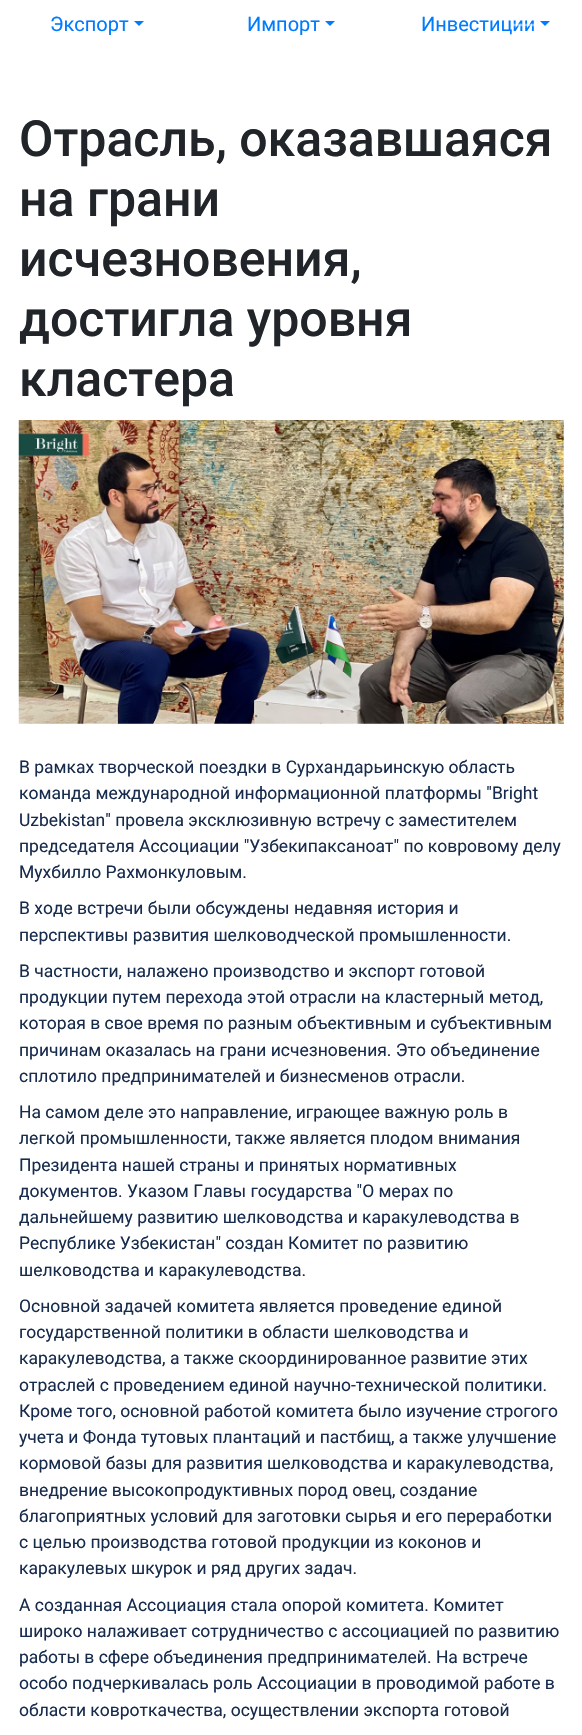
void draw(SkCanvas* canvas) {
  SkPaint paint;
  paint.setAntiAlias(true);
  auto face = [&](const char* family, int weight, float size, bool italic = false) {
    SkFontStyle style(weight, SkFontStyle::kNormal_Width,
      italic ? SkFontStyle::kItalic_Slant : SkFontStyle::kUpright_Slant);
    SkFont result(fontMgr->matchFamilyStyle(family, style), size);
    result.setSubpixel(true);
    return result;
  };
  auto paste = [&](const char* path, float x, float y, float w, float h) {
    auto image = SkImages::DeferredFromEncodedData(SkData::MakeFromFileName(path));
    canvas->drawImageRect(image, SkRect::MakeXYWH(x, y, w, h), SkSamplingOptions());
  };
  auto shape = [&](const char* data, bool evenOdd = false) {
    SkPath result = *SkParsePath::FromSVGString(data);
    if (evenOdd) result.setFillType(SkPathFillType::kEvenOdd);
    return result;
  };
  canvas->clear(0xffffffff);
  paint.setColor(0xff007bff);
  canvas->drawPath(shape("M134 21H144L139 26Z"), paint);
  canvas->drawPath(shape("M325 21H335L330 26Z"), paint);
  canvas->drawPath(shape("M540 21H550L545 26Z"), paint);
  paste("img/1.png", 18, 420, 546, 304);
  auto f0 = face("Roboto", 400, 20);
  {
    const struct { const char* s; float x, y; } items[] = {
      {"Экспорт", 50, 31},
      {"Импорт", 247, 31},
      {"Инвестиции", 421, 31},
    };
    for (auto [s, x, y] : items) {
      canvas->drawString(s, x, y, f0, paint);
    }
  }
  paint.setStroke(true);
  paint.setStrokeWidth(1);
  paint.setColor(0x1affffff);
  canvas->drawRoundRect(SkRect::MakeXYWH(493.5f, 10.5f, 69, 49), 4.5f, 4.5f, paint);
  paint.setStrokeWidth(2.5f);
  paint.setStrokeCap(SkPaint::kRound_Cap);
  paint.setColor(0x80ffffff);
  canvas->drawPath(shape("M514 25H541M514 35H541M514 45H541"), paint);
  auto f1 = face("Roboto", 500, 50);
  paint.setStroke(false);
  paint.setColor(0xff212529);
  {
    const struct { const char* s; float x, y; } items[] = {
      {"Отрасль, оказавшаяся", 19, 156},
      {"на грани", 19, 216},
      {"исчезновения,", 19, 276},
      {"достигла уровня", 19, 336},
      {"кластера", 19, 396},
    };
    for (auto [s, x, y] : items) {
      canvas->drawString(s, x, y, f1, paint);
    }
  }
  auto f2 = face("Roboto", 400, 17.5f);
  paint.setColor(0xff172b4d);
  {
    const struct { const char* s; float x, y; } items[] = {
      {"В рамках творческой поездки в Сурхандарьинскую область", 19, 773},
      {"команда международной информационной платформы \"Bright", 19, 799},
      {"Uzbekistan\" провела эксклюзивную встречу с заместителем", 19, 826},
      {"председателя Ассоциации \"Узбекипаксаноат\" по ковровому делу", 19, 852},
      {"Мухбилло Рахмонкуловым.", 19, 878},
      {"В ходе встречи были обсуждены недавняя история и", 19, 914},
      {"перспективы развития шелководческой промышленности.", 19, 941},
      {"В частности, налажено производство и экспорт готовой", 19, 977},
      {"продукции путем перехода этой отрасли на кластерный метод,", 19, 1003},
      {"которая в свое время по разным объективным и субъективным", 19, 1029},
      {"причинам оказалась на грани исчезновения. Это объединение", 19, 1056},
      {"сплотило предпринимателей и бизнесменов отрасли.", 19, 1082},
      {"На самом деле это направление, играющее важную роль в", 19, 1118},
      {"легкой промышленности, также является плодом внимания", 19, 1144},
      {"Президента нашей страны и принятых нормативных", 19, 1171},
      {"документов. Указом Главы государства \"О мерах по", 19, 1197},
      {"дальнейшему развитию шелководства и каракулеводства в", 19, 1223},
      {"Республике Узбекистан\" создан Комитет по развитию", 19, 1249},
      {"шелководства и каракулеводства.", 19, 1276},
      {"Основной задачей комитета является проведение единой", 19, 1312},
      {"государственной политики в области шелководства и", 19, 1338},
      {"каракулеводства, а также скоординированное развитие этих", 19, 1364},
      {"отраслей с проведением единой научно-технической политики.", 19, 1391},
      {"Кроме того, основной работой комитета было изучение строгого", 19, 1417},
      {"учета и Фонда тутовых плантаций и пастбищ, а также улучшение", 19, 1443},
      {"кормовой базы для развития шелководства и каракулеводства,", 19, 1469},
      {"внедрение высокопродуктивных пород овец, создание", 19, 1496},
      {"благоприятных условий для заготовки сырья и его переработки", 19, 1522},
      {"с целью производства готовой продукции из коконов и", 19, 1548},
      {"каракулевых шкурок и ряд других задач.", 19, 1574},
      {"А созданная Ассоциация стала опорой комитета. Комитет", 19, 1611},
      {"широко налаживает сотрудничество с ассоциацией по развитию", 19, 1637},
      {"работы в сфере объединения предпринимателей. На встрече", 19, 1663},
      {"особо подчеркивалась роль Ассоциации в проводимой работе в", 19, 1689},
      {"области ковроткачества, осуществлении экспорта готовой", 19, 1716},
    };
    for (auto [s, x, y] : items) {
      canvas->drawString(s, x, y, f2, paint);
    }
  }
}
